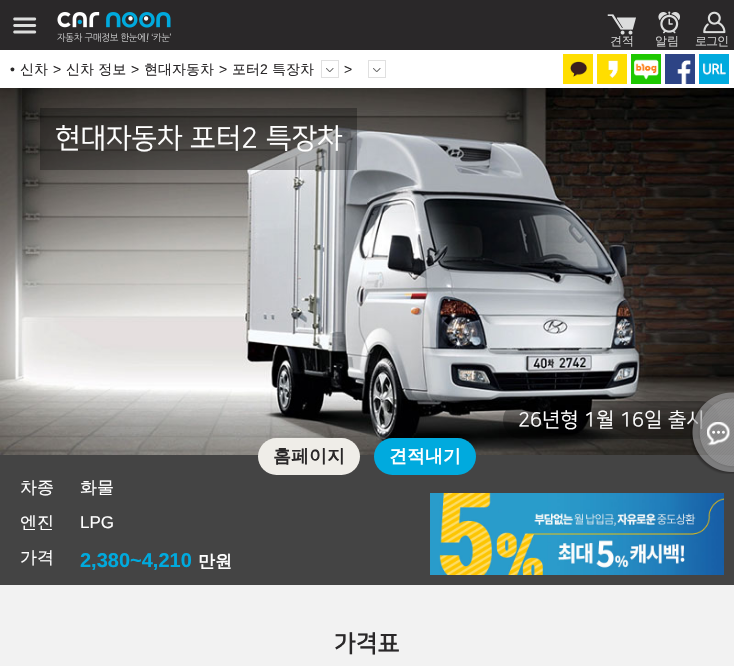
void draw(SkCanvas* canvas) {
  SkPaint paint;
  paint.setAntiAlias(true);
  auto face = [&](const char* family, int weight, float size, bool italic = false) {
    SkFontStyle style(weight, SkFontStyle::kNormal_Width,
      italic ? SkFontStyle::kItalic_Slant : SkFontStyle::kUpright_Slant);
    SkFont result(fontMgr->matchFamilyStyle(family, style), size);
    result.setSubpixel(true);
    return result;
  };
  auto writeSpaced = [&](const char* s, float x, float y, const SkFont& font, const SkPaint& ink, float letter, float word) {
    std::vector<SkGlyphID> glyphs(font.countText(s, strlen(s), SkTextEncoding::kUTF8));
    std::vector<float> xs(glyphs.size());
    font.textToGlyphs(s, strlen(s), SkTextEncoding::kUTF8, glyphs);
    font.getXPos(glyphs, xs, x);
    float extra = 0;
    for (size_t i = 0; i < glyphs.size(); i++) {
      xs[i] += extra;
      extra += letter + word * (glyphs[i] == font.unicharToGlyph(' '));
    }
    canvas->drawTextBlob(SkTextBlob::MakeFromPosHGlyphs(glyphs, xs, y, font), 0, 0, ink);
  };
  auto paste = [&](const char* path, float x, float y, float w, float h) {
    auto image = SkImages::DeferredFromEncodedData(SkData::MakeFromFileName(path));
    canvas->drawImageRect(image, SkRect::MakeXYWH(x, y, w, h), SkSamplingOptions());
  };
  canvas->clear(0xffffffff);
  paint.setColor(0xff2a2829);
  canvas->drawRect(SkRect::MakeXYWH(0, 0, 734, 50), paint);
  paste("img/1.png", 13, 17, 24, 17);
  paste("img/2.png", 57, 12, 114, 30);
  paste("img/3.png", 607, 14, 29, 21);
  paste("img/4.png", 658, 11, 22, 23);
  paste("img/5.png", 703, 11, 23, 23);
  paste("img/6.png", 326, 68, 8, 4);
  paint.setStroke(true);
  paint.setStrokeWidth(1);
  paint.setColor(0xffe0e0e0);
  canvas->drawRect(SkRect::MakeXYWH(321.5f, 60.5f, 17, 17), paint);
  paste("img/6.png", 373, 68, 8, 4);
  canvas->drawRect(SkRect::MakeXYWH(368.5f, 60.5f, 17, 17), paint);
  paste("img/7.png", 563, 54, 30, 30);
  paste("img/8.png", 597, 54, 30, 30);
  paste("img/9.png", 631, 54, 30, 30);
  paste("img/10.png", 665, 54, 30, 30);
  paste("img/11.png", 699, 54, 30, 30);
  paste("img/12.png", 0, 88, 734, 367);
  paint.setStroke(false);
  paint.setColor(0x4d000000);
  canvas->drawRect(SkRect::MakeXYWH(40, 108, 317, 62), paint);
  canvas->drawRoundRect(SkRect::MakeXYWH(503, 401, 216, 38), 19, 19, paint);
  paint.setColor(0xff444444);
  canvas->drawRect(SkRect::MakeXYWH(0, 455, 734, 130), paint);
  paint.setColor(0xffefede8);
  canvas->drawRoundRect(SkRect::MakeXYWH(258, 438, 102, 37), 18.5f, 18.5f, paint);
  paint.setColor(0xff00aade);
  canvas->drawRoundRect(SkRect::MakeXYWH(374, 438, 102, 37), 18.5f, 18.5f, paint);
  paste("img/13.png", 430, 493, 294, 82);
  paint.setColor(0xfff2f2f2);
  canvas->drawRect(SkRect::MakeXYWH(0, 585, 734, 81), paint);
  auto f0 = face("WenQuanYi Zen Hei", 500, 12);
  paint.setColor(0xffcccccc);
  canvas->drawString("견적", 610, 45, f0, paint);
  canvas->drawString("알림", 655, 45, f0, paint);
  writeSpaced("로그인", 695, 45, f0, paint, -1, 0);
  auto f1 = face("Liberation Sans", 400, 14);
  paint.setColor(0xff2a2829);
  canvas->drawString("•", 10, 74, f1, paint);
  auto f2 = face("WenQuanYi Zen Hei", 500, 14);
  canvas->drawString("신차", 20, 74, f2, paint);
  canvas->drawString(">", 53, 74, f1, paint);
  canvas->drawString("신차 정보", 66, 74, f2, paint);
  canvas->drawString(">", 131, 74, f1, paint);
  canvas->drawString("현대자동차", 144, 74, f2, paint);
  canvas->drawString(">", 219, 74, f1, paint);
  canvas->drawString("포터", 232, 74, f2, paint);
  canvas->drawString("2", 260, 74, f1, paint);
  canvas->drawString("특장차", 272, 74, f2, paint);
  canvas->drawString(">", 344, 74, f1, paint);
  auto f3 = face("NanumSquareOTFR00", 400, 28);
  paint.setColor(0xffffffff);
  {
    const struct { const char* s; float x, y; } items[] = {
      {"현대자동차", 55, 147},
      {"포터2", 190, 147},
      {"특장차", 266, 147},
    };
    for (auto [s, x, y] : items) {
      canvas->drawString(s, x, y, f3, paint);
    }
  }
  auto f4 = face("NanumSquareOTFR00", 400, 20);
  {
    const struct { const char* s; float x, y; } items[] = {
      {"26년형", 518, 426},
      {"1월", 584, 426},
      {"16일", 620, 426},
      {"출시", 668, 426},
    };
    for (auto [s, x, y] : items) {
      canvas->drawString(s, x, y, f4, paint);
    }
  }
  auto f5 = face("WenQuanYi Zen Hei", 700, 18);
  paint.setColor(0xff2a2829);
  canvas->drawString("홈페이지", 273, 462, f5, paint);
  paint.setColor(0xffffffff);
  canvas->drawString("견적내기", 389, 462, f5, paint);
  auto f6 = face("WenQuanYi Zen Hei", 500, 17);
  {
    const struct { const char* s; float x, y; } items[] = {
      {"차종", 20, 493},
      {"화물", 80, 493},
      {"엔진", 20, 528},
    };
    for (auto [s, x, y] : items) {
      canvas->drawString(s, x, y, f6, paint);
    }
  }
  auto f7 = face("Liberation Sans", 400, 17);
  canvas->drawString("LPG", 80, 528, f7, paint);
  canvas->drawString("가격", 20, 563, f6, paint);
  auto f8 = face("Liberation Sans", 700, 20);
  paint.setColor(0xff00aade);
  canvas->drawString("2,380~4,210", 80, 567, f8, paint);
  auto f9 = face("WenQuanYi Zen Hei", 700, 17);
  paint.setColor(0xffffffff);
  canvas->drawString("만원", 198, 567, f9, paint);
  auto f10 = face("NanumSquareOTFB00", 700, 24);
  paint.setColor(0xff2a2829);
  canvas->drawString("가격표", 334, 651, f10, paint);
  paste("img/14.png", 690, 392, 44, 82);
}
